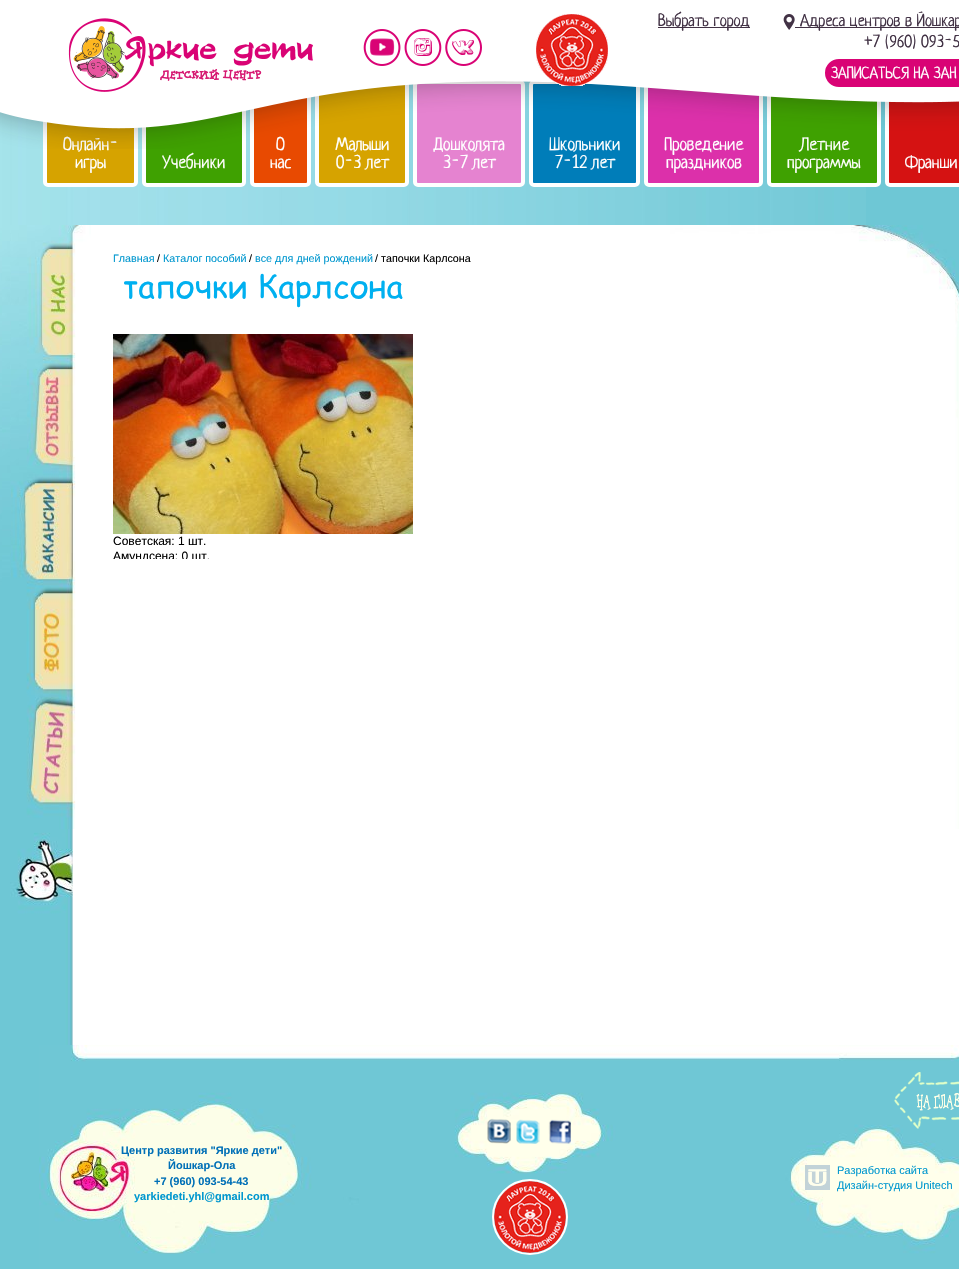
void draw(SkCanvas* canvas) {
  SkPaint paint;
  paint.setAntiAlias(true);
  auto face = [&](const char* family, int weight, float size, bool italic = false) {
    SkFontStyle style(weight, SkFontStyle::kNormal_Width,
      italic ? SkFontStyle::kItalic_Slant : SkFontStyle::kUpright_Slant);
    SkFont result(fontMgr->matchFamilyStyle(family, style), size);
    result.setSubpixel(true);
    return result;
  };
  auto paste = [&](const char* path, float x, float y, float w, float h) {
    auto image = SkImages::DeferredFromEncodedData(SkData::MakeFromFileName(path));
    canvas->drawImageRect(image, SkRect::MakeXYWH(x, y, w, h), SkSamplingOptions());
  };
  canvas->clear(0xff6ec7d5);
  paste("img/1.png", 0, 81, 866, 144);
  paint.setColor(0xffd6a300);
  canvas->drawRoundRect(SkRect::MakeXYWH(45, 82, 91, 103), 3, 3, paint);
  paint.setStroke(true);
  paint.setStrokeWidth(4);
  paint.setColor(0xffffffff);
  canvas->drawRoundRect(SkRect::MakeXYWH(45, 82, 91, 103), 3, 3, paint);
  paint.setStroke(false);
  paint.setColor(0xff3fa101);
  canvas->drawRoundRect(SkRect::MakeXYWH(144, 82, 100, 103), 3, 3, paint);
  paint.setStroke(true);
  paint.setColor(0xffffffff);
  canvas->drawRoundRect(SkRect::MakeXYWH(144, 82, 100, 103), 3, 3, paint);
  paint.setStroke(false);
  paint.setColor(0xffe84a01);
  canvas->drawRoundRect(SkRect::MakeXYWH(252, 82, 57, 103), 3, 3, paint);
  paint.setStroke(true);
  paint.setColor(0xffffffff);
  canvas->drawRoundRect(SkRect::MakeXYWH(252, 82, 57, 103), 3, 3, paint);
  paint.setStroke(false);
  paint.setColor(0xffd6a300);
  canvas->drawRoundRect(SkRect::MakeXYWH(317, 82, 90, 103), 3, 3, paint);
  paint.setStroke(true);
  paint.setColor(0xffffffff);
  canvas->drawRoundRect(SkRect::MakeXYWH(317, 82, 90, 103), 3, 3, paint);
  paint.setStroke(false);
  paint.setColor(0xffe583d0);
  canvas->drawRoundRect(SkRect::MakeXYWH(415, 82, 108, 103), 3, 3, paint);
  paint.setStroke(true);
  paint.setColor(0xffffffff);
  canvas->drawRoundRect(SkRect::MakeXYWH(415, 82, 108, 103), 3, 3, paint);
  paint.setStroke(false);
  paint.setColor(0xff007db9);
  canvas->drawRoundRect(SkRect::MakeXYWH(531, 82, 107, 103), 3, 3, paint);
  paint.setStroke(true);
  paint.setColor(0xffffffff);
  canvas->drawRoundRect(SkRect::MakeXYWH(531, 82, 107, 103), 3, 3, paint);
  paint.setStroke(false);
  paint.setColor(0xffdc30aa);
  canvas->drawRoundRect(SkRect::MakeXYWH(646, 82, 115, 103), 3, 3, paint);
  paint.setStroke(true);
  paint.setColor(0xffffffff);
  canvas->drawRoundRect(SkRect::MakeXYWH(646, 82, 115, 103), 3, 3, paint);
  paint.setStroke(false);
  paint.setColor(0xff3fa101);
  canvas->drawRoundRect(SkRect::MakeXYWH(769, 82, 110, 103), 3, 3, paint);
  paint.setStroke(true);
  paint.setColor(0xffffffff);
  canvas->drawRoundRect(SkRect::MakeXYWH(769, 82, 110, 103), 3, 3, paint);
  paint.setStroke(false);
  paint.setColor(0xffd51212);
  canvas->drawRoundRect(SkRect::MakeXYWH(887, 82, 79, 103), 3, 3, paint);
  paint.setStroke(true);
  paint.setColor(0xffffffff);
  canvas->drawRoundRect(SkRect::MakeXYWH(887, 82, 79, 103), 3, 3, paint);
  paste("img/9.png", 0, 225, 73, 1044);
  paste("img/10.png", 11, 225, 948, 604);
  paste("img/11.png", 113, 334, 300, 200);
  paint.setStroke(false);
  canvas->drawRect(SkRect::MakeXYWH(73, 829, 886, 216), paint);
  paste("img/12.png", 39, 1045, 920, 224);
  paste("img/13.png", 894, 1072, 65, 57);
  paste("img/14.png", 487, 1118, 24, 26);
  paste("img/15.png", 516, 1119, 24, 25);
  paste("img/16.png", 548, 1119, 23, 25);
  paint.setStroke(true);
  paint.setStrokeWidth(2);
  canvas->drawCircle(530, 1217, 37, paint);
  paste("img/17.png", 494, 1181, 72, 72);
  paste("img/18.png", 805, 1165, 25, 25);
  auto f0 = face("Neucha", 400, 18);
  paint.setStroke(false);
  {
    const struct { const char* s; float x, y; } items[] = {
      {"Онлайн-", 63, 150},
      {"игры", 75, 168},
      {"Учебники", 162, 168},
      {"О", 276, 150},
      {"нас", 270, 168},
      {"Малыши", 335, 150},
      {"0-3 лет", 336, 168},
      {"Дошколята", 433, 150},
      {"3-7 лет", 443, 168},
      {"Школьники", 549, 150},
      {"7-12 лет", 555, 168},
      {"Проведение", 664, 150},
      {"праздников", 666, 168},
      {"Летние", 800, 150},
    };
    for (auto [s, x, y] : items) {
      canvas->drawString(s, x, y, f0, paint);
    }
  }
  paste("img/2.png", 0, 0, 959, 149);
  paint.setColor(0xff423245);
  canvas->drawRect(SkRect::MakeXYWH(658, 27, 92, 1), paint);
  auto f1 = face("Neucha", 400, 17);
  canvas->drawString("Выбрать город", 658, 26, f1, paint);
  paint.setColor(0xffd90375);
  canvas->drawRoundRect(SkRect::MakeXYWH(826.5f, 60.5f, 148, 25), 12.5f, 12.5f, paint);
  paint.setStroke(true);
  paint.setStrokeWidth(3);
  canvas->drawRoundRect(SkRect::MakeXYWH(826.5f, 60.5f, 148, 25), 12.5f, 12.5f, paint);
  auto f2 = face("Neucha", 400, 16);
  paint.setStroke(false);
  paint.setColor(0xffffffff);
  canvas->drawString("ЗАПИСАТЬСЯ НА ЗАН", 831, 78, f2, paint);
  paint.setColor(0xff423245);
  canvas->drawString("+7 (960) 093-5", 864, 47, f1, paint);
  canvas->drawRect(SkRect::MakeXYWH(795, 27, 164, 1), paint);
  canvas->drawString("Адреса центров в Йошкар", 800, 26, f1, paint);
  paste("img/8.png", 783, 14, 12, 16);
  paste("img/7.png", 536, 14, 72, 72);
  paste("img/6.png", 445, 29, 37, 37);
  paste("img/5.png", 404, 29, 38, 37);
  paste("img/4.png", 363, 29, 38, 37);
  paste("img/3.png", 68, 18, 245, 74);
  paint.setColor(0xffffffff);
  canvas->drawString("программы", 787, 168, f0, paint);
  canvas->drawString("Франши", 905, 168, f0, paint);
  auto f3 = face("Liberation Sans", 400, 10.75f);
  paint.setColor(0xff0097cf);
  canvas->drawString("Главная", 113, 262, f3, paint);
  paint.setColor(0xff000000);
  canvas->drawString("/", 157, 262, f3, paint);
  paint.setColor(0xff0097cf);
  canvas->drawString("Каталог пособий", 163, 262, f3, paint);
  paint.setColor(0xff000000);
  canvas->drawString("/", 249, 262, f3, paint);
  paint.setColor(0xff0097cf);
  canvas->drawString("все для дней рождений", 255, 262, f3, paint);
  paint.setColor(0xff000000);
  canvas->drawString("/ тапочки Карлсона", 375, 262, f3, paint);
  auto f4 = face("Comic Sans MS", 400, 32.25f);
  paint.setColor(0xff00b0f0);
  canvas->drawString("тапочки Карлсона", 123, 298, f4, paint);
  auto f5 = face("Liberation Sans", 400, 12);
  paint.setColor(0xff000000);
  canvas->drawString("Советская: 1 шт.", 113, 545, f5, paint);
  canvas->save();
  canvas->clipRect(SkRect::MakeXYWH(103, 225, 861, 334));
  canvas->drawString("Амундсена: 0 шт.", 113, 560, f5, paint);
  canvas->restore();
  auto f6 = face("Liberation Sans", 700, 11);
  paint.setColor(0xff0170b7);
  {
    const struct { const char* s; float x, y; } items[] = {
      {"Центр развития \"Яркие дети\"", 121, 1154},
      {"Йошкар-Ола", 168, 1169},
      {"+7 (960) 093-54-43", 154, 1185},
    };
    for (auto [s, x, y] : items) {
      canvas->drawString(s, x, y, f6, paint);
    }
  }
  paint.setColor(0xff0097cf);
  canvas->drawString("yarkiedeti.yhl@gmail.com", 134, 1200, f6, paint);
  auto f7 = face("Liberation Sans", 400, 11);
  canvas->drawString("Разработка сайта", 837, 1174, f7, paint);
  canvas->drawString("Дизайн-студия Unitech", 837, 1189, f7, paint);
}
